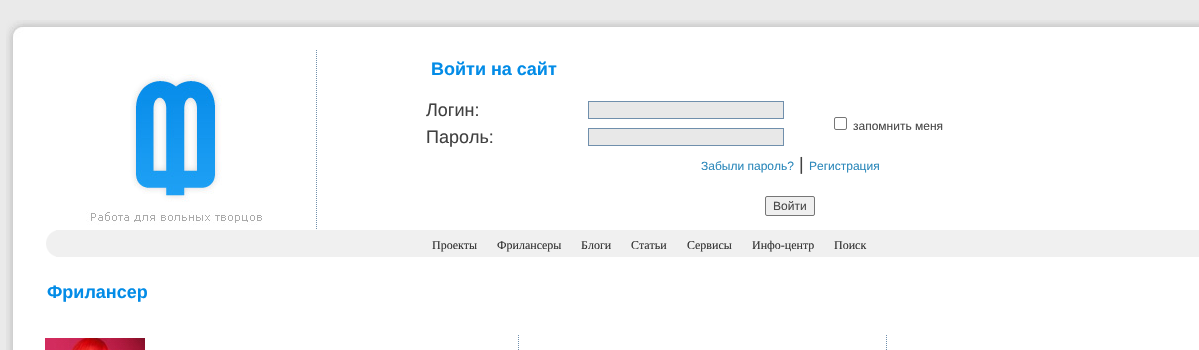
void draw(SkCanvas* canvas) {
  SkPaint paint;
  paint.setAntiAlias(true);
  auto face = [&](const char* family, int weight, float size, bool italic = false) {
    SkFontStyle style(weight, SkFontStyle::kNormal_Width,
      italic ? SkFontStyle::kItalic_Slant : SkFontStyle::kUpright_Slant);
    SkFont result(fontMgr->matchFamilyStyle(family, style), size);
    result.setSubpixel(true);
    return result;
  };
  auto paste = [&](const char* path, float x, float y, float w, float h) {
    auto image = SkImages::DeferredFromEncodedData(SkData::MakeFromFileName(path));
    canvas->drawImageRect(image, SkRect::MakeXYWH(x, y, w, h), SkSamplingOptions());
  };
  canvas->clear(0xffeaeaea);
  paste("img/1.png", 6, 20, 29, 30);
  paste("img/2.png", 35, 20, 1164, 30);
  paste("img/3.png", 6, 50, 29, 300);
  paint.setColor(0xffffffff);
  canvas->drawRect(SkRect::MakeXYWH(35, 50, 1164, 300), paint);
  paste("img/4.png", 316, 50, 1, 179);
  paste("img/5.png", 86, 74, 176, 151);
  paint.setColor(0xffe8e8e8);
  canvas->drawRect(SkRect::MakeXYWH(588.5f, 101.5f, 195, 17), paint);
  paint.setStroke(true);
  paint.setStrokeWidth(1);
  paint.setColor(0xff708fac);
  canvas->drawRect(SkRect::MakeXYWH(588.5f, 101.5f, 195, 17), paint);
  paint.setColor(0xff767676);
  canvas->drawRoundRect(SkRect::MakeXYWH(834.5f, 117.5f, 12, 12), 1.5f, 1.5f, paint);
  paint.setStroke(false);
  paint.setColor(0xffe8e8e8);
  canvas->drawRect(SkRect::MakeXYWH(588.5f, 128.5f, 195, 17), paint);
  paint.setStroke(true);
  paint.setColor(0xff708fac);
  canvas->drawRect(SkRect::MakeXYWH(588.5f, 128.5f, 195, 17), paint);
  paint.setStroke(false);
  paint.setColor(0xffefefef);
  canvas->drawRoundRect(SkRect::MakeXYWH(765.5f, 196.5f, 49, 19), 1.5f, 1.5f, paint);
  paint.setStroke(true);
  paint.setColor(0xff767676);
  canvas->drawRoundRect(SkRect::MakeXYWH(765.5f, 196.5f, 49, 19), 1.5f, 1.5f, paint);
  paste("img/6.png", 46, 230, 23, 27);
  paint.setStroke(false);
  paint.setColor(0xfff0f0f0);
  canvas->drawRect(SkRect::MakeXYWH(69, 230, 1130, 27), paint);
  paste("img/7.png", 45, 338, 100, 12);
  paste("img/8.png", 518, 335, 1, 15);
  paste("img/8.png", 886, 335, 1, 15);
  auto f0 = face("Liberation Sans", 700, 18);
  paint.setColor(0xff038ce7);
  canvas->drawString("Войти на сайт", 431, 75, f0, paint);
  auto f1 = face("Liberation Sans", 400, 18);
  paint.setColor(0xff414141);
  canvas->drawString("Логин:", 426, 116, f1, paint);
  auto f2 = face("Liberation Sans", 400, 12);
  paint.setColor(0xff494949);
  canvas->drawString("запомнить меня", 853, 130, f2, paint);
  paint.setColor(0xff414141);
  canvas->drawString("Пароль:", 426, 143, f1, paint);
  paint.setColor(0xff2d89bb);
  canvas->drawString("Забыли пароль?", 701, 170, f2, paint);
  paint.setColor(0xff414141);
  canvas->drawString("|", 799, 170, f1, paint);
  paint.setColor(0xff2d89bb);
  canvas->drawString("Регистрация", 809, 170, f2, paint);
  paint.setColor(0xff494949);
  canvas->drawString("Войти", 773, 210, f2, paint);
  auto f3 = face("Liberation Serif", 400, 12);
  paint.setColor(0xff333333);
  {
    const struct { const char* s; float x, y; } items[] = {
      {"Проекты", 432, 249},
      {"Фрилансеры", 497, 249},
      {"Блоги", 581, 249},
      {"Статьи", 631, 249},
      {"Сервисы", 687, 249},
      {"Инфо-центр", 752, 249},
      {"Поиск", 834, 249},
    };
    for (auto [s, x, y] : items) {
      canvas->drawString(s, x, y, f3, paint);
    }
  }
  paint.setColor(0xff038ce7);
  canvas->drawString("Фрилансер", 47, 298, f0, paint);
}
